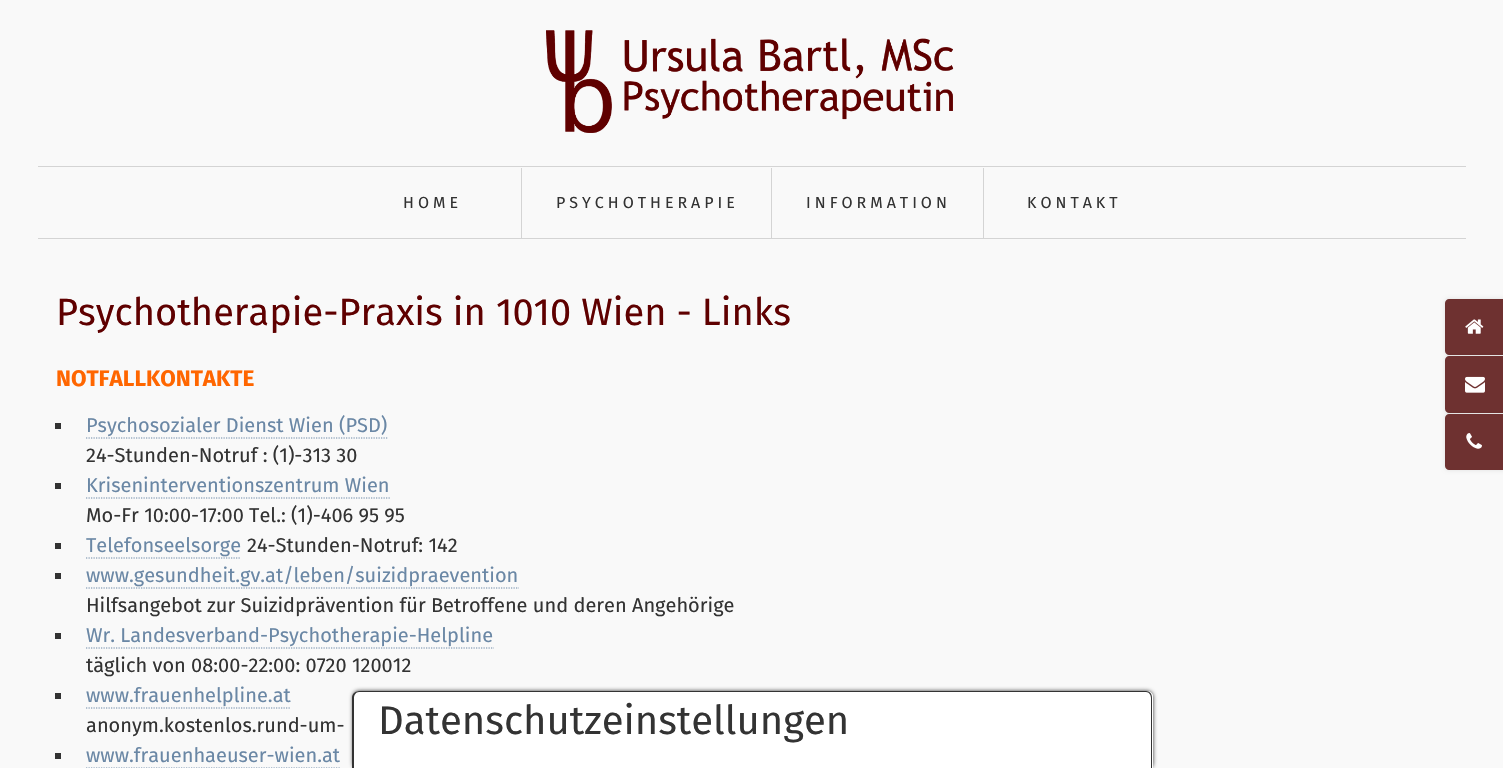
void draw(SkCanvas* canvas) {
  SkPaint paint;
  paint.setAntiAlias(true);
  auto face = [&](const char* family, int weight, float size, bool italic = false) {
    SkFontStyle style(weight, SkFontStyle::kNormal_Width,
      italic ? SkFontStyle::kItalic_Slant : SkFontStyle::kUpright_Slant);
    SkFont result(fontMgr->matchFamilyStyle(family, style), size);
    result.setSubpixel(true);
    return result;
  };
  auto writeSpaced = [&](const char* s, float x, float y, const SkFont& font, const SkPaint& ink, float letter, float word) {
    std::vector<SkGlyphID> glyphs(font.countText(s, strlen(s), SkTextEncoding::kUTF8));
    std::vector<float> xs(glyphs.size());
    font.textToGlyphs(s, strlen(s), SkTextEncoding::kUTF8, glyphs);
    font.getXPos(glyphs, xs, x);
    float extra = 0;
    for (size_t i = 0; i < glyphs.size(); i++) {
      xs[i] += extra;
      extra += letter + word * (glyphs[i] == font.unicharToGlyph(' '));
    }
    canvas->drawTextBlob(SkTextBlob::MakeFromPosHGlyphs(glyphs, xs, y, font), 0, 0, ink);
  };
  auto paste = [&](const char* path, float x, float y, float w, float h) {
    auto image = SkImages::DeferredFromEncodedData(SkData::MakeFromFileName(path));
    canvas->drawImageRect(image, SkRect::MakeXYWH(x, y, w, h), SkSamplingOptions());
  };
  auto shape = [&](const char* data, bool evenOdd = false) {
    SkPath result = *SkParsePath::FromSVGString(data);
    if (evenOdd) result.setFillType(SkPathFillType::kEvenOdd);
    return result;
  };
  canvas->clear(0xfff9f9f9);
  paste("img/1.png", 546, 30, 408, 103);
  {
    const struct { float x, y, w, h; SkColor color; } items[] = {
      {38, 166, 1428, 1, 0xffd4d4d4},
      {521, 168, 1, 70, 0xffd4d4d4},
      {771, 168, 1, 70, 0xffd4d4d4},
      {983, 168, 1, 70, 0xffd4d4d4},
      {38, 238, 1428, 1, 0xffd4d4d4},
      {55, 423, 6, 6, 0xff333333},
    };
    for (auto [x, y, w, h, color] : items) {
      paint.setColor(color);
      canvas->drawRect(SkRect::MakeXYWH(x, y, w, h), paint);
    }
  }
  paint.setStroke(true);
  paint.setStrokeWidth(1.2f);
  paint.setColor(0xff6a87a5);
  paint.setPathEffect(SkDashPathEffect::Make({{1.25f, 1.25f}}, 0));
  canvas->drawPath(shape("M86 438H387.5"), paint);
  paint.setPathEffect(nullptr);
  paint.setStroke(false);
  paint.setColor(0xff333333);
  canvas->drawRect(SkRect::MakeXYWH(55, 483, 6, 6), paint);
  paint.setStroke(true);
  paint.setColor(0xff6a87a5);
  paint.setPathEffect(SkDashPathEffect::Make({{1.25f, 1.25f}}, 0));
  canvas->drawPath(shape("M86 498H390"), paint);
  paint.setPathEffect(nullptr);
  paint.setStroke(false);
  paint.setColor(0xff333333);
  canvas->drawRect(SkRect::MakeXYWH(55, 543, 6, 6), paint);
  paint.setStroke(true);
  paint.setColor(0xff6a87a5);
  paint.setPathEffect(SkDashPathEffect::Make({{1.25f, 1.25f}}, 0));
  canvas->drawPath(shape("M86 558H241"), paint);
  paint.setPathEffect(nullptr);
  paint.setStroke(false);
  paint.setColor(0xff333333);
  canvas->drawRect(SkRect::MakeXYWH(55, 573, 6, 6), paint);
  paint.setStroke(true);
  paint.setColor(0xff6a87a5);
  paint.setPathEffect(SkDashPathEffect::Make({{1.25f, 1.25f}}, 0));
  canvas->drawPath(shape("M86 588H519"), paint);
  paint.setPathEffect(nullptr);
  paint.setStroke(false);
  paint.setColor(0xff333333);
  canvas->drawRect(SkRect::MakeXYWH(55, 633, 6, 6), paint);
  paint.setStroke(true);
  paint.setColor(0xff6a87a5);
  paint.setPathEffect(SkDashPathEffect::Make({{1.25f, 1.25f}}, 0));
  canvas->drawPath(shape("M86 648H494"), paint);
  paint.setPathEffect(nullptr);
  paint.setStroke(false);
  paint.setColor(0xff333333);
  canvas->drawRect(SkRect::MakeXYWH(55, 693, 6, 6), paint);
  paint.setStroke(true);
  paint.setColor(0xff6a87a5);
  paint.setPathEffect(SkDashPathEffect::Make({{1.25f, 1.25f}}, 0));
  canvas->drawPath(shape("M86 708H291"), paint);
  paint.setPathEffect(nullptr);
  paint.setStroke(false);
  paint.setColor(0xff333333);
  canvas->drawRect(SkRect::MakeXYWH(55, 753, 6, 6), paint);
  paint.setStroke(true);
  paint.setColor(0xff6a87a5);
  paint.setPathEffect(SkDashPathEffect::Make({{1.25f, 1.25f}}, 0));
  canvas->drawPath(shape("M86 768H340"), paint);
  paint.setPathEffect(nullptr);
  paint.setStroke(false);
  paint.setColor(0x1a000000);
  paint.setMaskFilter(SkMaskFilter::MakeBlur(kNormal_SkBlurStyle, 2));
  canvas->drawRoundRect(SkRect::MakeXYWH(1445, 299, 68, 56), 4, 4, paint);
  paint.setMaskFilter(nullptr);
  paint.setColor(0xff6e3130);
  canvas->drawPath(shape("M1449 299H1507V355H1449C1447 355 1445 353 1445 351V303C1445 301 1447 299 1449 299Z"), paint);
  paste("img/2.png", 1465, 319, 19, 15);
  paint.setColor(0x1a000000);
  paint.setMaskFilter(SkMaskFilter::MakeBlur(kNormal_SkBlurStyle, 2));
  canvas->drawRoundRect(SkRect::MakeXYWH(1445, 356, 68, 57), 4, 4, paint);
  paint.setMaskFilter(nullptr);
  paint.setColor(0xff6e3130);
  canvas->drawPath(shape("M1449 356H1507V413H1449C1447 413 1445 411 1445 409V360C1445 358 1447 356 1449 356Z"), paint);
  paste("img/3.png", 1465, 376, 20, 17);
  paint.setColor(0x1a000000);
  paint.setMaskFilter(SkMaskFilter::MakeBlur(kNormal_SkBlurStyle, 2));
  canvas->drawRoundRect(SkRect::MakeXYWH(1445, 414, 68, 56), 4, 4, paint);
  paint.setMaskFilter(nullptr);
  paint.setColor(0xff6e3130);
  canvas->drawPath(shape("M1449 414H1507V470H1449C1447 470 1445 468 1445 466V418C1445 416 1447 414 1449 414Z"), paint);
  paste("img/4.png", 1466, 433, 16, 16);
  canvas->save();
  canvas->clipPath(shape("M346 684H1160V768H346ZM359 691H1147C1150.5 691 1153 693.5 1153 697V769H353V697C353 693.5 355.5 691 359 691Z", true), true);
  paint.setColor(0xcc000000);
  paint.setMaskFilter(SkMaskFilter::MakeBlur(kNormal_SkBlurStyle, 2));
  canvas->drawRoundRect(SkRect::MakeXYWH(353, 691, 800, 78), 6, 6, paint);
  paint.setMaskFilter(nullptr);
  canvas->restore();
  paint.setColor(0xe6ffffff);
  canvas->drawPath(shape("M359 691H1147C1150.5 691 1153 693.5 1153 697V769H353V697C353 693.5 355.5 691 359 691Z"), paint);
  paint.setColor(0xff333333);
  canvas->drawPath(shape("M359 691H1146C1150 691 1152 694 1152 698V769H352V698C352 694 355 691 359 691ZM359 692H1146C1149 692 1151 695 1151 698V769H354V698C354 695 356 692 359 692Z", true), paint);
  auto f0 = face("Fira Sans", 400, 16);
  {
    const struct { const char* s; float x, y; } items[] = {
      {"HOME", 403, 208},
      {"PSYCHOTHERAPIE", 556, 208},
      {"INFORMATION", 806, 208},
      {"KONTAKT", 1027, 208},
    };
    for (auto [s, x, y] : items) {
      writeSpaced(s, x, y, f0, paint, 4, 0);
    }
  }
  auto f1 = face("Fira Sans", 400, 38);
  paint.setColor(0xff5f0000);
  canvas->drawString("Psychotherapie-Praxis in 1010 Wien - Links", 56, 325, f1, paint);
  auto f2 = face("Fira Sans", 700, 22.5f);
  paint.setColor(0xffff6600);
  canvas->drawString("NOTFALLKONTAKTE", 56, 386, f2, paint);
  auto f3 = face("Fira Sans", 400, 20);
  paint.setColor(0xff6a87a5);
  canvas->drawString("Psychosozialer Dienst Wien (PSD)", 86, 432, f3, paint);
  paint.setColor(0xff333333);
  canvas->drawString("24-Stunden-Notruf : (1)-313 30", 86, 462, f3, paint);
  paint.setColor(0xff6a87a5);
  canvas->drawString("Kriseninterventionszentrum Wien", 86, 492, f3, paint);
  paint.setColor(0xff333333);
  canvas->drawString("Mo-Fr 10:00-17:00 Tel.: (1)-406 95 95", 86, 522, f3, paint);
  paint.setColor(0xff6a87a5);
  canvas->drawString("Telefonseelsorge", 86, 552, f3, paint);
  paint.setColor(0xff333333);
  canvas->drawString("24-Stunden-Notruf: 142", 247, 552, f3, paint);
  paint.setColor(0xff6a87a5);
  canvas->drawString("www.gesundheit.gv.at/leben/suizidpraevention", 86, 582, f3, paint);
  paint.setColor(0xff333333);
  canvas->drawString("Hilfsangebot zur Suizidprävention für Betroffene und deren Angehörige", 86, 612, f3, paint);
  paint.setColor(0xff6a87a5);
  canvas->drawString("Wr. Landesverband-Psychotherapie-Helpline", 86, 642, f3, paint);
  paint.setColor(0xff333333);
  canvas->drawString("täglich von 08:00-22:00: 0720 120012", 86, 672, f3, paint);
  paint.setColor(0xff6a87a5);
  canvas->drawString("www.frauenhelpline.at", 86, 702, f3, paint);
  paint.setColor(0xff333333);
  canvas->drawString("anonym.kostenlos.rund-um-", 86, 732, f3, paint);
  paint.setColor(0xff6a87a5);
  canvas->drawString("www.frauenhaeuser-wien.at", 86, 762, f3, paint);
  auto f4 = face("Fira Sans", 400, 40);
  paint.setColor(0xff333333);
  canvas->drawString("Datenschutzeinstellungen", 378, 734, f4, paint);
}
